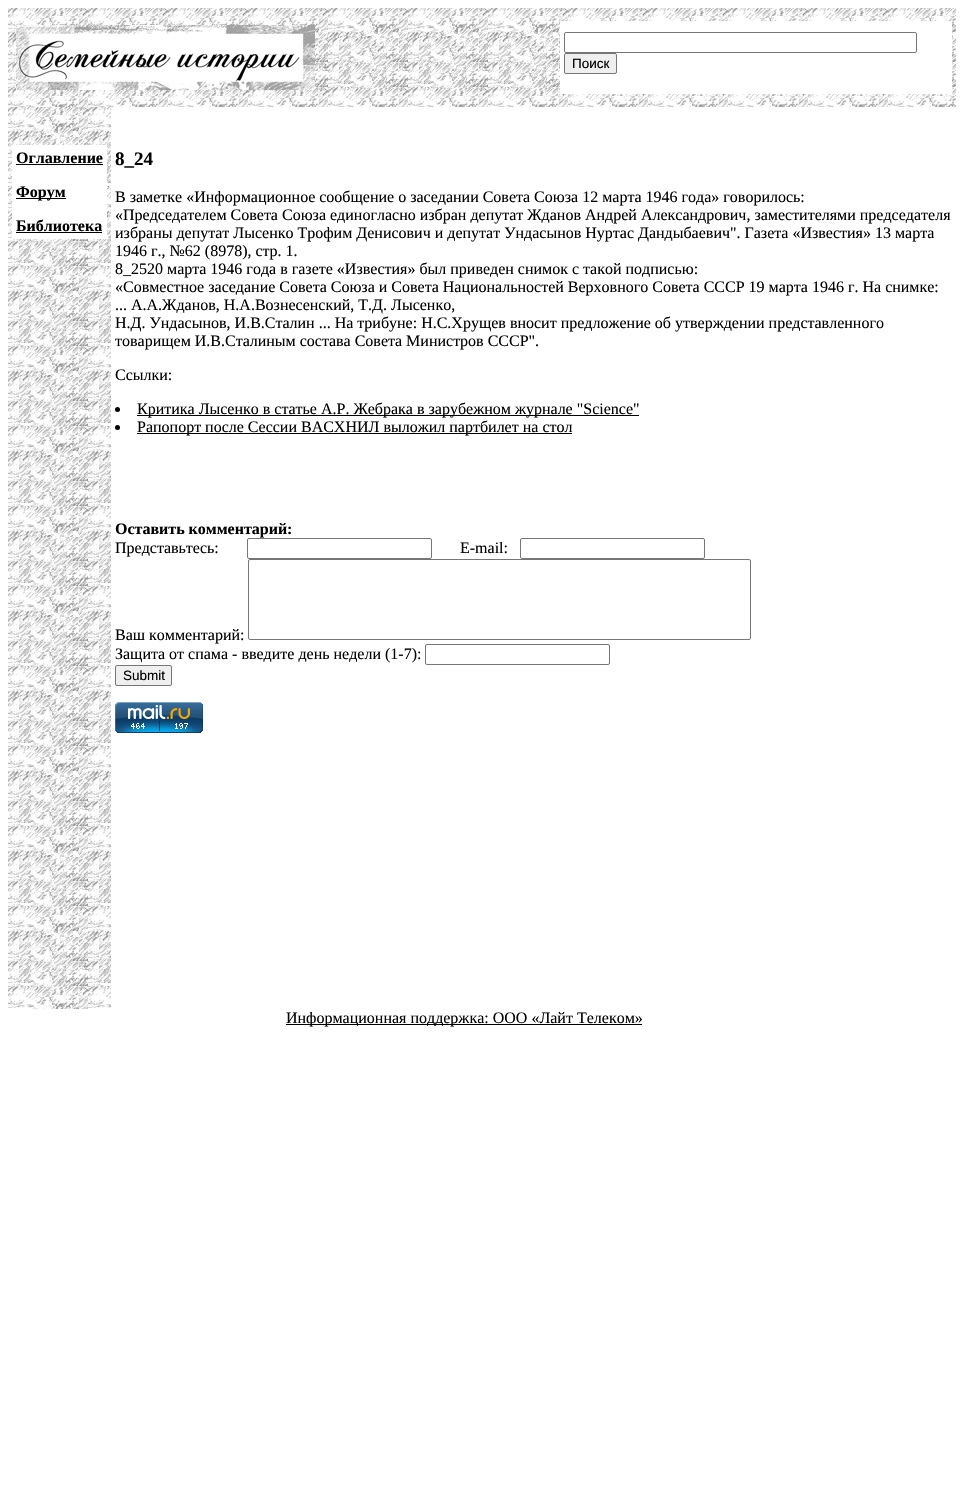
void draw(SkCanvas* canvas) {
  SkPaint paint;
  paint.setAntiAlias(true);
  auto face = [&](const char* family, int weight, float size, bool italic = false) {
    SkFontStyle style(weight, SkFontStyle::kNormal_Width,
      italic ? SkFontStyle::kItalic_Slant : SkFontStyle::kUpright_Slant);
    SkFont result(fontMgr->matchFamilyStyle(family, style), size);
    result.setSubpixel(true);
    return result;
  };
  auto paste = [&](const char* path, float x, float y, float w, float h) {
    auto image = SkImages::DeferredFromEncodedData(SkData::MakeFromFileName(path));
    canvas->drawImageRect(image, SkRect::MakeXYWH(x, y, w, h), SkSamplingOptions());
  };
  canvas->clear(0xffffffff);
  paste("img/1.png", 8, 8, 948, 99);
  paste("img/2.png", 16, 25, 299, 65);
  paint.setColor(0xffffffff);
  canvas->drawRect(SkRect::MakeXYWH(560, 21, 392, 73), paint);
  paint.setStroke(true);
  paint.setStrokeWidth(1);
  paint.setColor(0xff767676);
  canvas->drawRoundRect(SkRect::MakeXYWH(564.5f, 32.5f, 352, 20), 1.5f, 1.5f, paint);
  paint.setStroke(false);
  paint.setColor(0xffefefef);
  canvas->drawRoundRect(SkRect::MakeXYWH(564.5f, 53.5f, 52, 20), 1.5f, 1.5f, paint);
  paint.setStroke(true);
  paint.setColor(0xff767676);
  canvas->drawRoundRect(SkRect::MakeXYWH(564.5f, 53.5f, 52, 20), 1.5f, 1.5f, paint);
  paste("img/3.png", 8, 107, 103, 902);
  paint.setStroke(false);
  {
    const struct { float x, y, w, h; SkColor color; } items[] = {
      {12, 145, 95, 94, 0xffffffff},
      {16, 164, 87, 1, 0xff000000},
      {16, 198, 50, 1, 0xff000000},
      {16, 232, 86, 1, 0xff000000},
    };
    for (auto [x, y, w, h, color] : items) {
      paint.setColor(color);
      canvas->drawRect(SkRect::MakeXYWH(x, y, w, h), paint);
    }
  }
  canvas->drawCircle(117.5f, 409.5f, 2.5f, paint);
  canvas->drawRect(SkRect::MakeXYWH(137, 415, 502, 1), paint);
  canvas->drawCircle(117.5f, 427.5f, 2.5f, paint);
  canvas->drawRect(SkRect::MakeXYWH(137, 433, 435, 1), paint);
  paint.setStroke(true);
  paint.setColor(0xff767676);
  canvas->drawRoundRect(SkRect::MakeXYWH(247.5f, 538.5f, 184, 20), 1.5f, 1.5f, paint);
  canvas->drawRoundRect(SkRect::MakeXYWH(520.5f, 538.5f, 184, 20), 1.5f, 1.5f, paint);
  canvas->drawRoundRect(SkRect::MakeXYWH(248.5f, 559.5f, 502, 80), 1.5f, 1.5f, paint);
  canvas->drawRoundRect(SkRect::MakeXYWH(425.5f, 644.5f, 184, 20), 1.5f, 1.5f, paint);
  paint.setStroke(false);
  paint.setColor(0xffefefef);
  canvas->drawRoundRect(SkRect::MakeXYWH(115.5f, 665.5f, 56, 20), 1.5f, 1.5f, paint);
  paint.setStroke(true);
  paint.setColor(0xff767676);
  canvas->drawRoundRect(SkRect::MakeXYWH(115.5f, 665.5f, 56, 20), 1.5f, 1.5f, paint);
  paste("img/4.png", 115, 702, 88, 31);
  paint.setStroke(false);
  paint.setColor(0xff000000);
  canvas->drawRect(SkRect::MakeXYWH(286, 1024, 356, 1), paint);
  auto f0 = face("Liberation Sans", 400, 13.5f);
  canvas->drawString("Поиск", 572, 68, f0, paint);
  auto f1 = face("Liberation Serif", 700, 16);
  {
    const struct { const char* s; float x, y; } items[] = {
      {"Оглавление", 16, 163},
      {"Форум", 16, 197},
      {"Библиотека", 16, 231},
    };
    for (auto [s, x, y] : items) {
      canvas->drawString(s, x, y, f1, paint);
    }
  }
  auto f2 = face("Liberation Serif", 700, 19);
  canvas->drawString("8_24", 115, 165, f2, paint);
  auto f3 = face("Liberation Serif", 400, 16);
  {
    const struct { const char* s; float x, y; } items[] = {
      {"В заметке «Информационное сообщение о заседании Совета Союза 12 марта 1946 года» говорилось:", 115, 202},
      {"«Председателем Совета Союза единогласно избран депутат Жданов Андрей Александрович, заместителями председателя", 115, 220},
      {"избраны депутат Лысенко Трофим Денисович и депутат Ундасынов Нуртас Дандыбаевич\". Газета «Известия» 13 марта", 115, 238},
      {"1946 г., №62 (8978), стр. 1.", 115, 256},
      {"8_2520 марта 1946 года в газете «Известия» был приведен снимок с такой подписью:", 115, 274},
      {"«Совместное заседание Совета Союза и Совета Национальностей Верховного Совета СССР 19 марта 1946 г. На снимке:", 115, 292},
      {"... А.А.Жданов, Н.А.Вознесенский, Т.Д. Лыcенко,", 115, 310},
      {"Н.Д. Ундасынов, И.В.Сталин ... На трибуне: Н.С.Хрущев вносит предложение об утверждении представленного", 115, 328},
      {"товарищем И.В.Сталиным состава Совета Министров СССР\".", 115, 346},
      {"Ссылки:", 115, 380},
      {"Критика Лысенко в статье А.Р. Жебрака в зарубежном журнале \"Science\"", 137, 414},
      {"Рапопорт после Сессии ВАСХНИЛ выложил партбилет на стол", 137, 432},
    };
    for (auto [s, x, y] : items) {
      canvas->drawString(s, x, y, f3, paint);
    }
  }
  canvas->drawString("Оставить комментарий:", 115, 534, f1, paint);
  {
    const struct { const char* s; float x, y; } items[] = {
      {"Представьтесь:", 115, 553},
      {"E-mail:", 460, 553},
      {"Ваш комментарий:", 115, 640},
      {"Защита от спама - введите день недели (1-7):", 115, 659},
    };
    for (auto [s, x, y] : items) {
      canvas->drawString(s, x, y, f3, paint);
    }
  }
  canvas->drawString("Submit", 123, 680, f0, paint);
  canvas->drawString("Информационная поддержка: ООО «Лайт Телеком»", 286, 1023, f3, paint);
}
